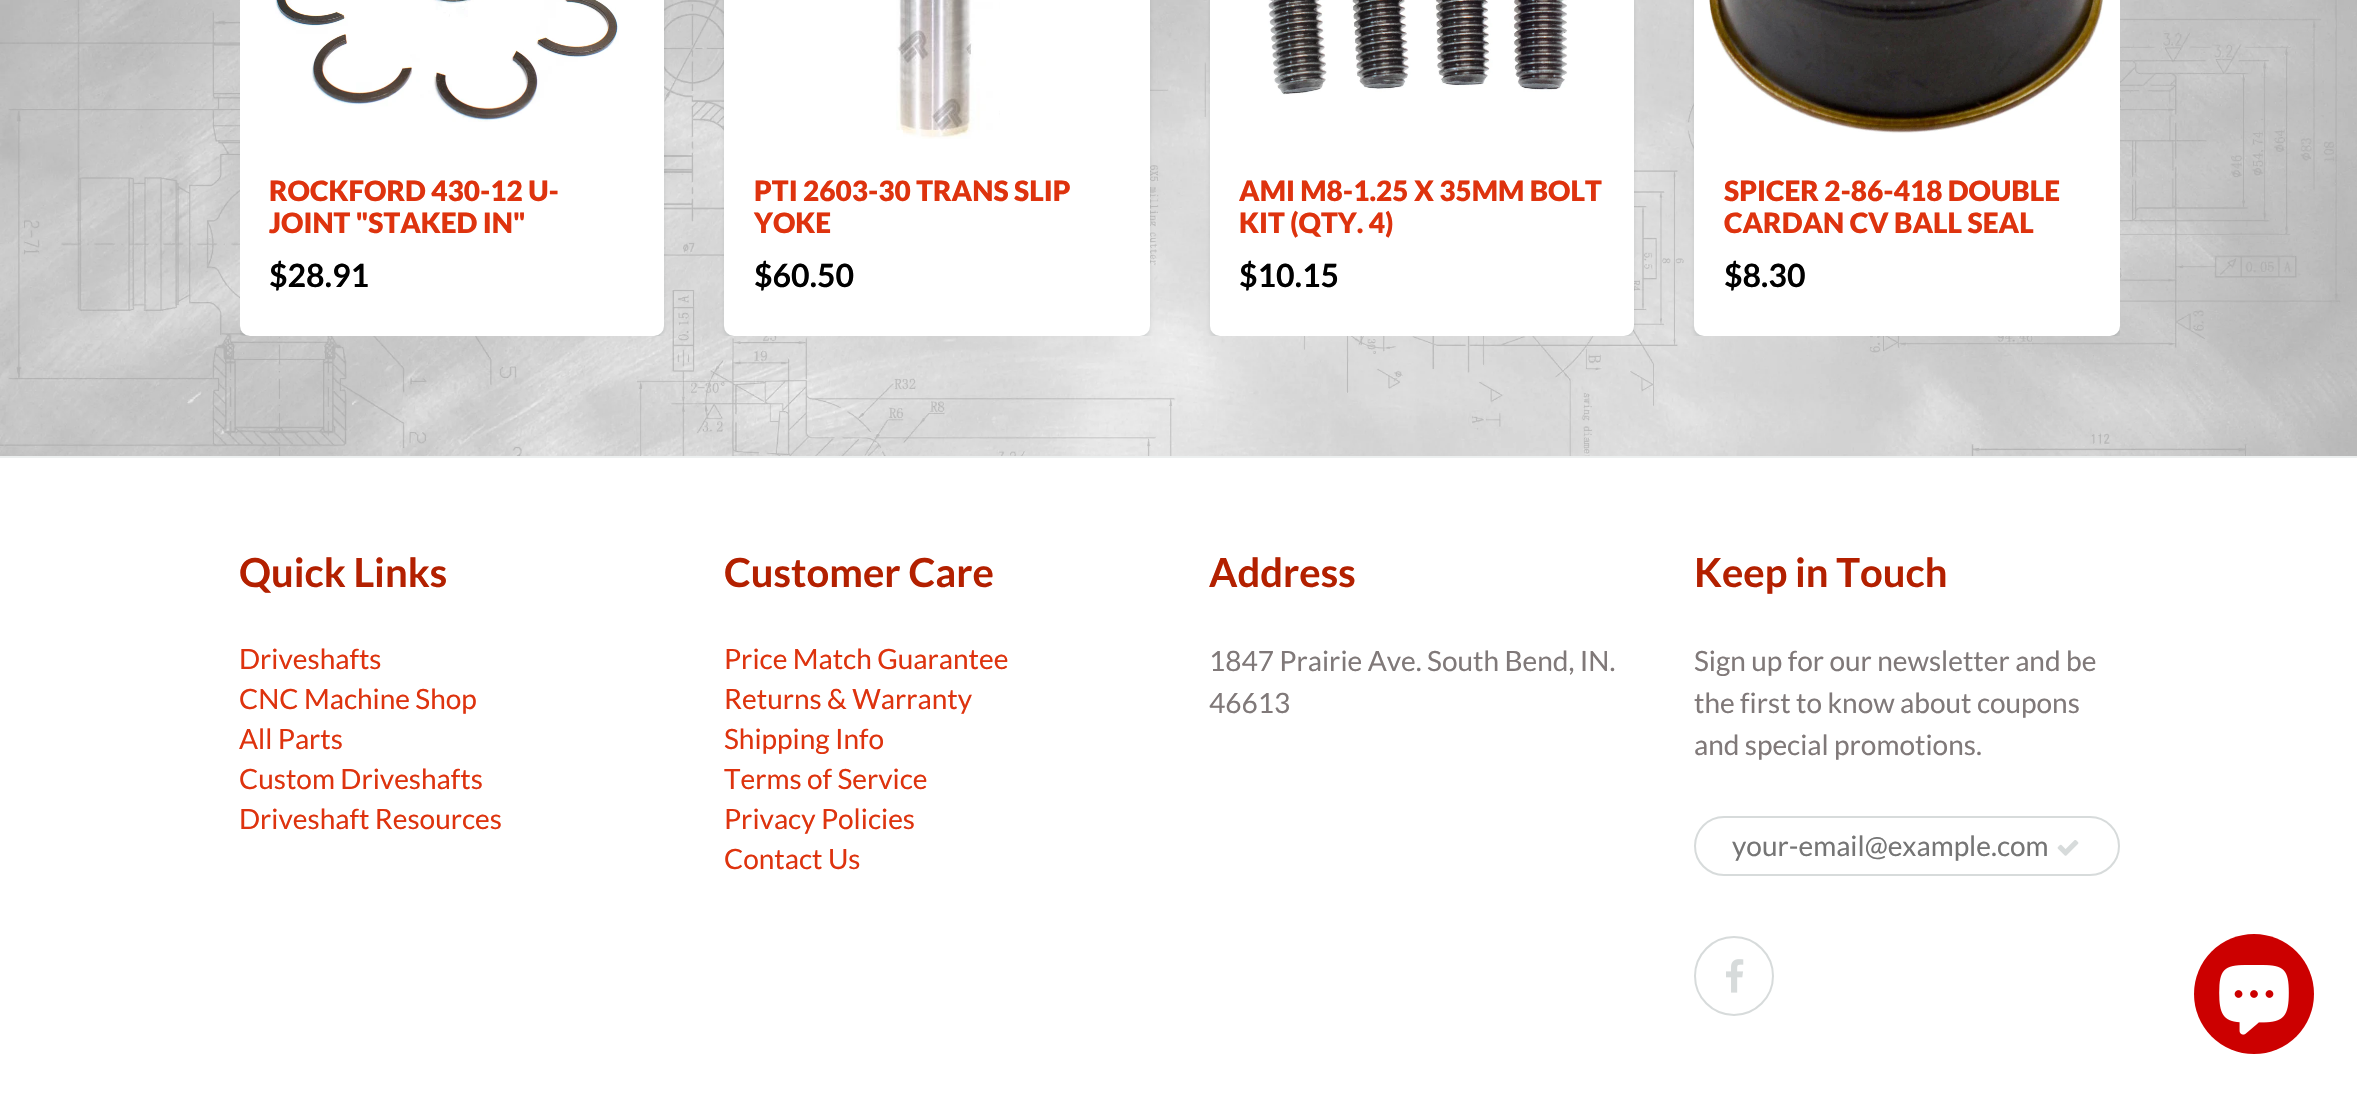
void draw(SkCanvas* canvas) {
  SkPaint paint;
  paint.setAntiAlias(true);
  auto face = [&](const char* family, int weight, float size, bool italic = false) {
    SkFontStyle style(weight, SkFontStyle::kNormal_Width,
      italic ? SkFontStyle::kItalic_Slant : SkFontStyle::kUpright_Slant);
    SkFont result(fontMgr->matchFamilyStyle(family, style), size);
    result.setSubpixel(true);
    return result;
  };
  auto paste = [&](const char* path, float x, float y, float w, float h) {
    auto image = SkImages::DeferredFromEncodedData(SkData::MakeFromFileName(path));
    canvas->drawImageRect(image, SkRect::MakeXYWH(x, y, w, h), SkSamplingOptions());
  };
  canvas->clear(0xffffffff);
  paste("img/1.png", 0, 0, 2357, 456);
  canvas->save();
  canvas->clipRect(SkRect::MakeXYWH(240, 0, 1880, 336));
  paint.setColor(0x1a0b191c);
  paint.setMaskFilter(SkMaskFilter::MakeBlur(kNormal_SkBlurStyle, 2));
  canvas->drawRoundRect(SkRect::MakeXYWH(240, -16, 424, 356), 10, 10, paint);
  paint.setMaskFilter(nullptr);
  canvas->restore();
  paint.setColor(0xffffffff);
  canvas->drawRoundRect(SkRect::MakeXYWH(245, -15, 414, 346), 5, 5, paint);
  paint.setStroke(true);
  paint.setStrokeWidth(10);
  canvas->drawRoundRect(SkRect::MakeXYWH(245, -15, 414, 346), 5, 5, paint);
  paste("img/2.png", 275, 0, 344, 122);
  canvas->save();
  canvas->clipRect(SkRect::MakeXYWH(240, 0, 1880, 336));
  paint.setStroke(false);
  paint.setColor(0x1a0b191c);
  paint.setMaskFilter(SkMaskFilter::MakeBlur(kNormal_SkBlurStyle, 2));
  canvas->drawRoundRect(SkRect::MakeXYWH(724, -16, 426, 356), 10, 10, paint);
  paint.setMaskFilter(nullptr);
  canvas->restore();
  paint.setColor(0xffffffff);
  canvas->drawRoundRect(SkRect::MakeXYWH(729, -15, 416, 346), 5, 5, paint);
  paint.setStroke(true);
  canvas->drawRoundRect(SkRect::MakeXYWH(729, -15, 416, 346), 5, 5, paint);
  paste("img/3.png", 896, 0, 104, 139);
  canvas->save();
  canvas->clipRect(SkRect::MakeXYWH(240, 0, 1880, 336));
  paint.setStroke(false);
  paint.setColor(0x1a0b191c);
  paint.setMaskFilter(SkMaskFilter::MakeBlur(kNormal_SkBlurStyle, 2));
  canvas->drawRoundRect(SkRect::MakeXYWH(1210, -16, 424, 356), 10, 10, paint);
  paint.setMaskFilter(nullptr);
  canvas->restore();
  paint.setColor(0xffffffff);
  canvas->drawRoundRect(SkRect::MakeXYWH(1215, -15, 414, 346), 5, 5, paint);
  paint.setStroke(true);
  canvas->drawRoundRect(SkRect::MakeXYWH(1215, -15, 414, 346), 5, 5, paint);
  paste("img/4.png", 1268, 0, 300, 95);
  canvas->save();
  canvas->clipRect(SkRect::MakeXYWH(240, 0, 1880, 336));
  paint.setStroke(false);
  paint.setColor(0x1a0b191c);
  paint.setMaskFilter(SkMaskFilter::MakeBlur(kNormal_SkBlurStyle, 2));
  canvas->drawRoundRect(SkRect::MakeXYWH(1694, -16, 426, 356), 10, 10, paint);
  paint.setMaskFilter(nullptr);
  canvas->restore();
  paint.setColor(0xffffffff);
  canvas->drawRoundRect(SkRect::MakeXYWH(1699, -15, 416, 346), 5, 5, paint);
  paint.setStroke(true);
  canvas->drawRoundRect(SkRect::MakeXYWH(1699, -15, 416, 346), 5, 5, paint);
  paste("img/5.png", 1709, 0, 395, 134);
  paint.setStroke(false);
  paint.setColor(0xffecefef);
  canvas->drawRect(SkRect::MakeXYWH(0, 456, 2357, 2), paint);
  paint.setStroke(true);
  paint.setStrokeWidth(2);
  paint.setColor(0xffd7dbdb);
  canvas->drawRoundRect(SkRect::MakeXYWH(1695, 817, 424, 58), 29, 29, paint);
  paste("img/6.png", 2057, 840, 22, 16);
  canvas->drawCircle(1734, 976, 39, paint);
  paste("img/7.png", 1726, 959, 18, 34);
  paint.setStroke(false);
  paint.setColor(0xffcc0000);
  canvas->drawCircle(2254, 994, 60, paint);
  paste("img/8.png", 2219, 965, 70, 70);
  auto f0 = face("Lato", 900, 28);
  paint.setColor(0xffde330e);
  canvas->drawString("ROCKFORD 430-12 U-", 269, 201, f0, paint);
  canvas->drawString("JOINT \"STAKED IN\"", 269, 233, f0, paint);
  auto f1 = face("Lato", 700, 32);
  paint.setColor(0xff000000);
  canvas->drawString("$28.91", 269, 287, f1, paint);
  paint.setColor(0xffde330e);
  canvas->drawString("PTI 2603-30 TRANS SLIP", 754, 201, f0, paint);
  canvas->drawString("YOKE", 754, 233, f0, paint);
  paint.setColor(0xff000000);
  canvas->drawString("$60.50", 754, 287, f1, paint);
  paint.setColor(0xffde330e);
  canvas->drawString("AMI M8-1.25 X 35MM BOLT", 1239, 201, f0, paint);
  canvas->drawString("KIT (QTY. 4)", 1239, 233, f0, paint);
  paint.setColor(0xff000000);
  canvas->drawString("$10.15", 1239, 287, f1, paint);
  paint.setColor(0xffde330e);
  canvas->drawString("SPICER 2-86-418 DOUBLE", 1724, 201, f0, paint);
  canvas->drawString("CARDAN CV BALL SEAL", 1724, 233, f0, paint);
  paint.setColor(0xff000000);
  canvas->drawString("$8.30", 1724, 287, f1, paint);
  auto f2 = face("Lato", 700, 40);
  paint.setColor(0xffb32000);
  canvas->drawString("Quick Links", 239, 587, f2, paint);
  auto f3 = face("Lato", 400, 28);
  paint.setColor(0xffde330e);
  {
    const struct { const char* s; float x, y; } items[] = {
      {"Driveshafts", 239, 669},
      {"CNC Machine Shop", 239, 709},
      {"All Parts", 239, 749},
      {"Custom Driveshafts", 239, 789},
      {"Driveshaft Resources", 239, 829},
    };
    for (auto [s, x, y] : items) {
      canvas->drawString(s, x, y, f3, paint);
    }
  }
  paint.setColor(0xffb32000);
  canvas->drawString("Customer Care", 724, 587, f2, paint);
  paint.setColor(0xffde330e);
  {
    const struct { const char* s; float x, y; } items[] = {
      {"Price Match Guarantee", 724, 669},
      {"Returns & Warranty", 724, 709},
      {"Shipping Info", 724, 749},
      {"Terms of Service", 724, 789},
      {"Privacy Policies", 724, 829},
      {"Contact Us", 724, 869},
    };
    for (auto [s, x, y] : items) {
      canvas->drawString(s, x, y, f3, paint);
    }
  }
  paint.setColor(0xffb32000);
  canvas->drawString("Address", 1209, 587, f2, paint);
  paint.setColor(0xff807979);
  canvas->drawString("1847 Prairie Ave. South Bend, IN.", 1209, 671, f3, paint);
  canvas->drawString("46613", 1209, 713, f3, paint);
  paint.setColor(0xffb32000);
  canvas->drawString("Keep in Touch", 1694, 587, f2, paint);
  paint.setColor(0xff807979);
  {
    const struct { const char* s; float x, y; } items[] = {
      {"Sign up for our newsletter and be", 1694, 671},
      {"the first to know about coupons", 1694, 713},
      {"and special promotions.", 1694, 755},
    };
    for (auto [s, x, y] : items) {
      canvas->drawString(s, x, y, f3, paint);
    }
  }
  paint.setColor(0xff757575);
  canvas->drawString("your-email@example.com", 1732, 856, f3, paint);
}
